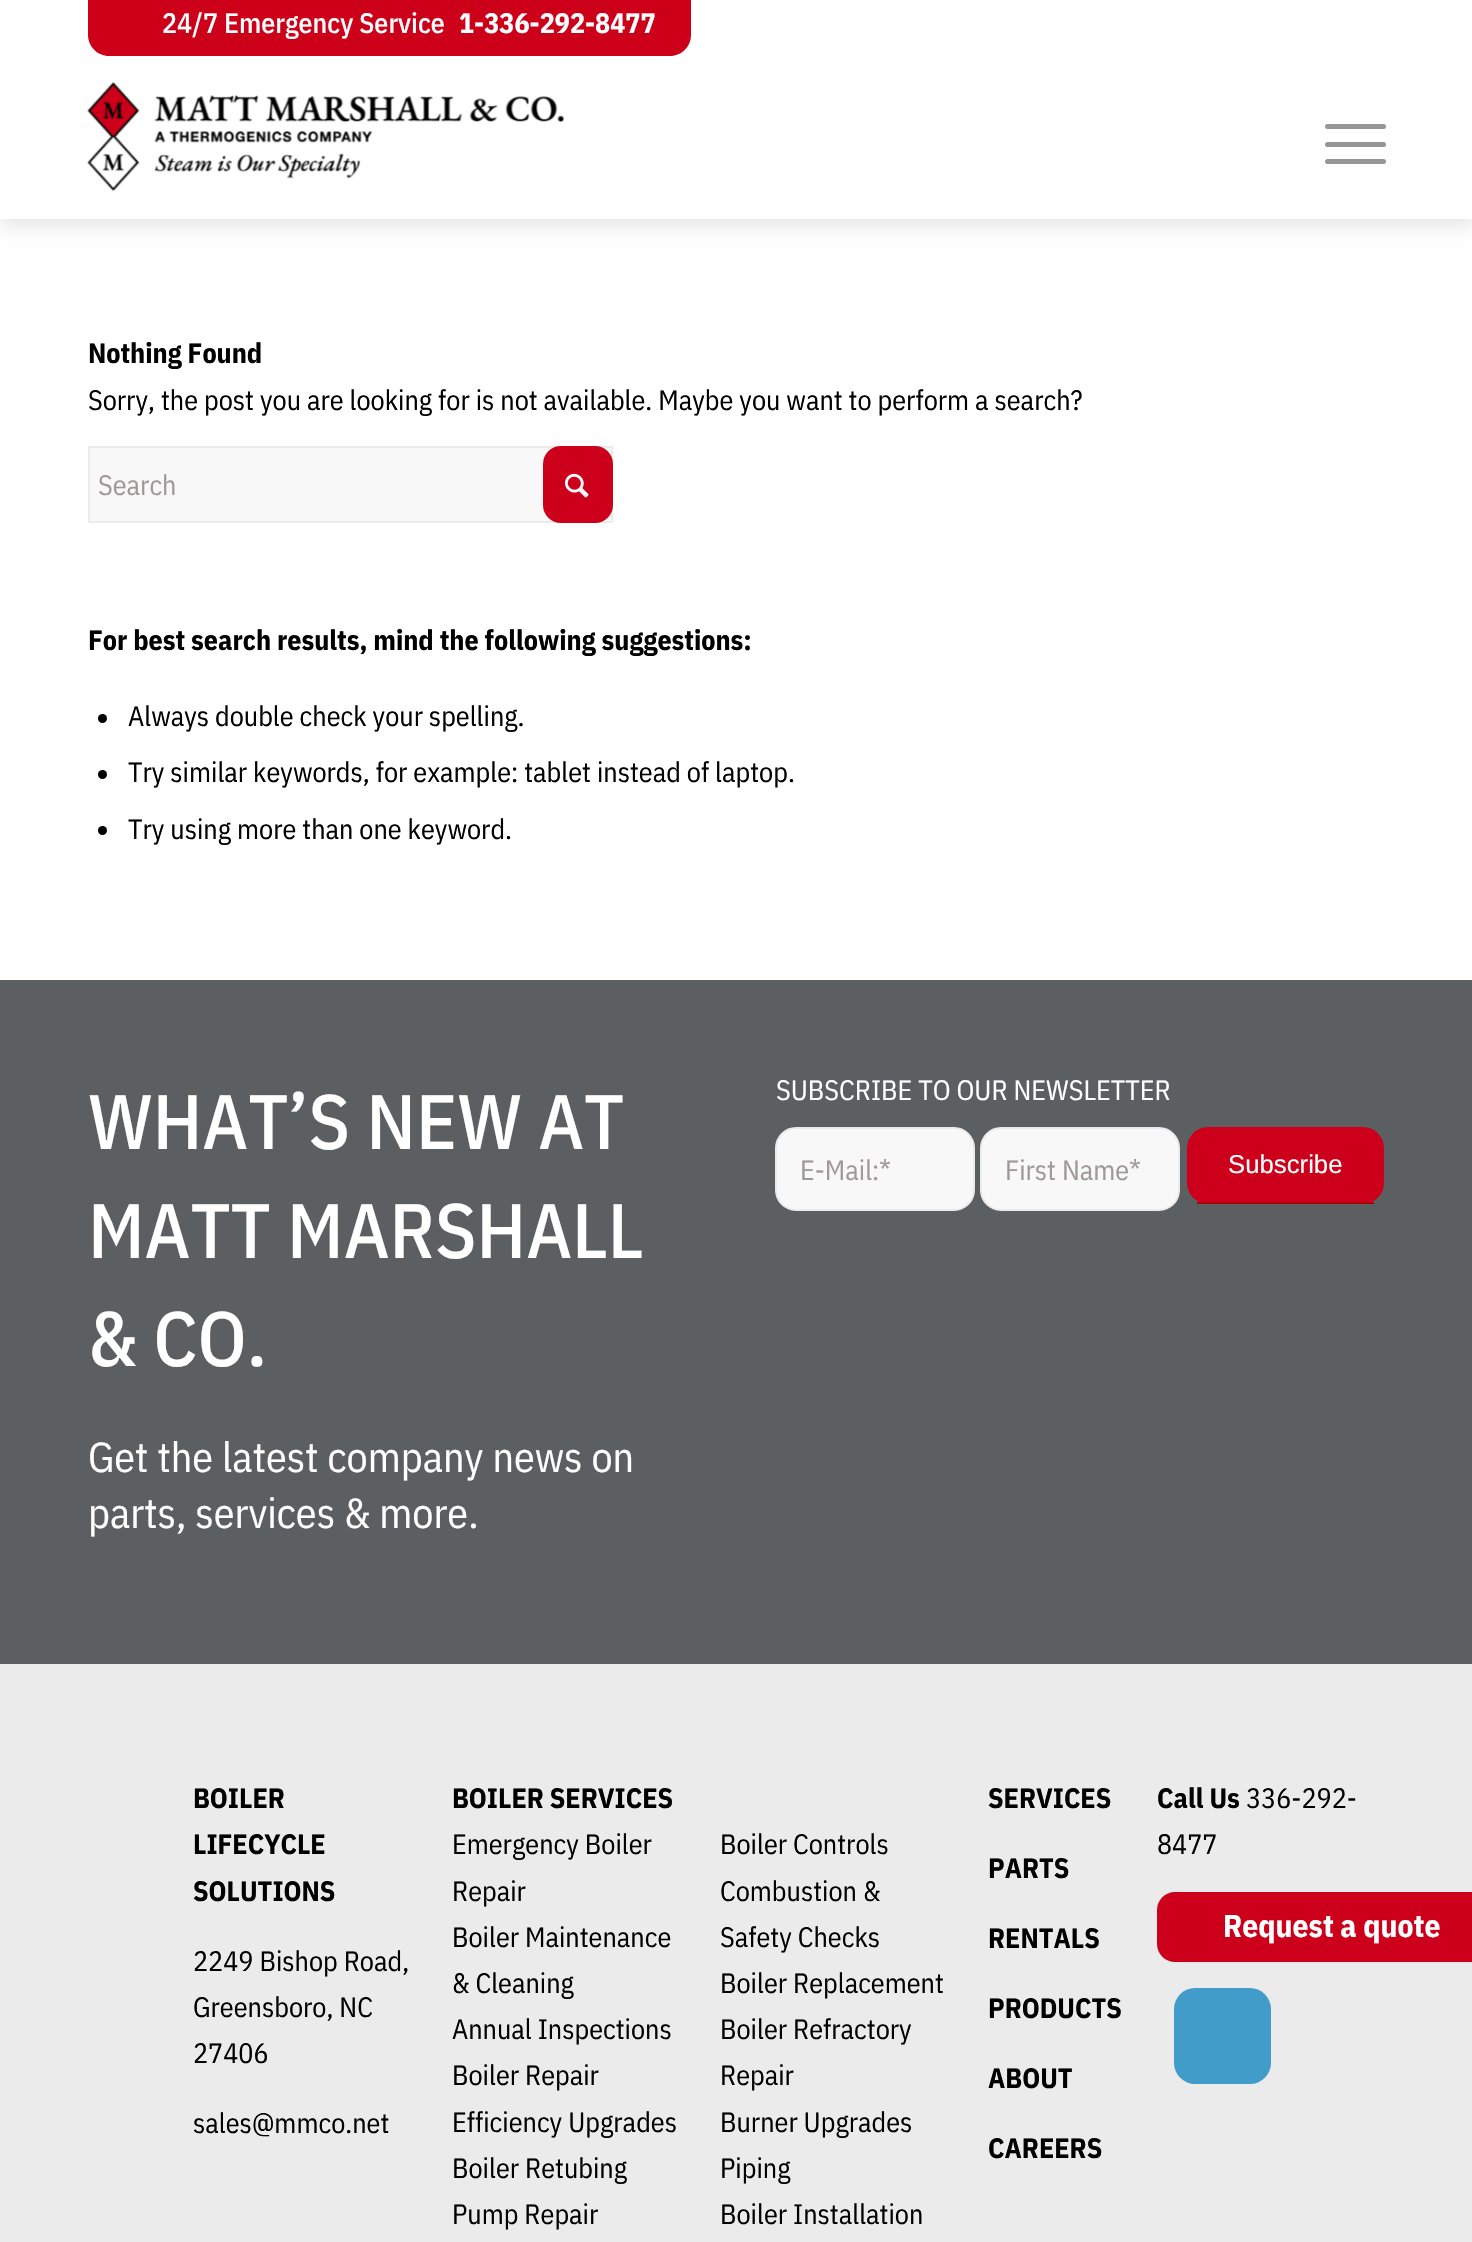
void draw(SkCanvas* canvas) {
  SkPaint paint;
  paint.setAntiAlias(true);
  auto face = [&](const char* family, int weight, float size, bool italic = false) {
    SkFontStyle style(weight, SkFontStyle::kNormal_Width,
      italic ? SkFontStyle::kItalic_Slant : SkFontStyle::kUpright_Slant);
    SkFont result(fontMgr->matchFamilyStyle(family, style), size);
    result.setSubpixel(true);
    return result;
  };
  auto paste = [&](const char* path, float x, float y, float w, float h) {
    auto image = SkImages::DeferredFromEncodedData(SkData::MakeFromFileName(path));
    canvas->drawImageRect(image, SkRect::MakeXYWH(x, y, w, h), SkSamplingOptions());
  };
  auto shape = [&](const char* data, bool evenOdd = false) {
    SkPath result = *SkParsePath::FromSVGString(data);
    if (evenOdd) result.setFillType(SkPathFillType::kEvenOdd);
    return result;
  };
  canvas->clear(0xffffffff);
  paint.setColor(0x1a000000);
  paint.setMaskFilter(SkMaskFilter::MakeBlur(kNormal_SkBlurStyle, 9));
  canvas->drawRect(SkRect::MakeXYWH(0, 7, 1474, 219), paint);
  paint.setMaskFilter(nullptr);
  paint.setColor(0xffffffff);
  canvas->drawRect(SkRect::MakeXYWH(0, 0, 1472, 219), paint);
  paint.setColor(0xffcd001a);
  canvas->drawPath(shape("M88-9H691V35C691 46.5 681.5 56 670 56H109C97.5 56 88 46.5 88 35Z"), paint);
  paste("img/1.png", 87, 82, 477, 110);
  paint.setColor(0xff969696);
  canvas->drawRoundRect(SkRect::MakeXYWH(1325, 142, 61, 5), 2.5f, 2.5f, paint);
  canvas->drawRoundRect(SkRect::MakeXYWH(1325, 124, 61, 5), 2.5f, 2.5f, paint);
  canvas->drawRoundRect(SkRect::MakeXYWH(1325, 159, 61, 5), 2.5f, 2.5f, paint);
  paint.setColor(0xfff8f8f8);
  canvas->drawRect(SkRect::MakeXYWH(89, 447, 523, 75), paint);
  paint.setStroke(true);
  paint.setStrokeWidth(2);
  paint.setColor(0xffebebeb);
  canvas->drawRect(SkRect::MakeXYWH(89, 447, 523, 75), paint);
  paint.setStroke(false);
  paint.setColor(0xffcd001b);
  canvas->drawRoundRect(SkRect::MakeXYWH(543, 446, 70, 77), 18, 18, paint);
  paste("img/2.png", 565, 473, 24, 25);
  paint.setColor(0xff000000);
  canvas->drawCircle(102.5f, 718.5f, 4.5f, paint);
  canvas->drawCircle(102.5f, 774.5f, 4.5f, paint);
  canvas->drawCircle(102.5f, 830.5f, 4.5f, paint);
  paint.setColor(0xff5b5f62);
  canvas->drawRect(SkRect::MakeXYWH(0, 980, 1472, 684), paint);
  paint.setColor(0xfff8f8f8);
  canvas->drawRoundRect(SkRect::MakeXYWH(776, 1128, 198, 82), 20, 20, paint);
  paint.setStroke(true);
  paint.setColor(0xffebebeb);
  canvas->drawRoundRect(SkRect::MakeXYWH(776, 1128, 198, 82), 20, 20, paint);
  paint.setStroke(false);
  paint.setColor(0xfff8f8f8);
  canvas->drawRoundRect(SkRect::MakeXYWH(981, 1128, 198, 82), 20, 20, paint);
  paint.setStroke(true);
  paint.setColor(0xffebebeb);
  canvas->drawRoundRect(SkRect::MakeXYWH(981, 1128, 198, 82), 20, 20, paint);
  paint.setStroke(false);
  paint.setColor(0xffcd001b);
  canvas->drawRoundRect(SkRect::MakeXYWH(1187, 1127, 197, 77), 21, 21, paint);
  paint.setColor(0xffab0009);
  canvas->drawRect(SkRect::MakeXYWH(1197, 1202, 177, 2), paint);
  paint.setColor(0xffecebeb);
  canvas->drawRect(SkRect::MakeXYWH(0, 1664, 1472, 578), paint);
  paint.setColor(0xffcd001b);
  canvas->drawPath(shape("M1175 1892H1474V1962H1175C1165 1962 1157 1954 1157 1944V1910C1157 1900 1165 1892 1175 1892Z"), paint);
  paint.setColor(0xff419cca);
  canvas->drawRoundRect(SkRect::MakeXYWH(1174, 1988, 97, 96), 21, 21, paint);
  auto f0 = face("IBM Plex Sans Condensed", 500, 28);
  paint.setColor(0xffffffff);
  canvas->drawString("24/7 Emergency Service", 162, 33, f0, paint);
  auto f1 = face("IBM Plex Sans Condensed", 700, 28);
  canvas->drawString("1-336-292-8477", 459, 33, f1, paint);
  paint.setColor(0xff000000);
  canvas->drawString("Nothing Found", 88, 363, f1, paint);
  auto f2 = face("IBM Plex Sans Condensed", 400, 28);
  canvas->drawString("Sorry, the post you are looking for is not available. Maybe you want to perform a search?", 88, 410, f2, paint);
  paint.setColor(0xff9f9899);
  canvas->drawString("Search", 98, 495, f2, paint);
  paint.setColor(0xff000000);
  canvas->drawString("For best search results, mind the following suggestions:", 88, 650, f1, paint);
  {
    const struct { const char* s; float x, y; } items[] = {
      {"Always double check your spelling.", 128, 726},
      {"Try similar keywords, for example: tablet instead of laptop.", 128, 782},
      {"Try using more than one keyword.", 128, 839},
    };
    for (auto [s, x, y] : items) {
      canvas->drawString(s, x, y, f2, paint);
    }
  }
  auto f3 = face("IBM Plex Sans Condensed", 500, 77);
  paint.setColor(0xffffffff);
  {
    const struct { const char* s; float x, y; } items[] = {
      {"WHAT’S NEW AT", 88, 1149},
      {"MATT MARSHALL", 88, 1258},
      {"& CO.", 88, 1366},
    };
    for (auto [s, x, y] : items) {
      canvas->drawString(s, x, y, f3, paint);
    }
  }
  auto f4 = face("IBM Plex Sans Condensed", 400, 42);
  canvas->drawString("Get the latest company news on", 88, 1472, f4, paint);
  canvas->drawString("parts, services & more.", 88, 1528, f4, paint);
  canvas->drawString("SUBSCRIBE TO OUR NEWSLETTER", 776, 1100, f2, paint);
  paint.setColor(0xff9f9899);
  canvas->drawString("E-Mail:*", 800, 1180, f2, paint);
  canvas->drawString("First Name*", 1005, 1180, f2, paint);
  auto f5 = face("Liberation Sans", 400, 25.75f);
  paint.setColor(0xffffffff);
  canvas->drawString("Subscribe", 1228, 1173, f5, paint);
  paint.setColor(0xff000000);
  {
    const struct { const char* s; float x, y; } items[] = {
      {"BOILER", 193, 1808},
      {"LIFECYCLE", 193, 1854},
      {"SOLUTIONS", 193, 1901},
    };
    for (auto [s, x, y] : items) {
      canvas->drawString(s, x, y, f1, paint);
    }
  }
  {
    const struct { const char* s; float x, y; } items[] = {
      {"2249 Bishop Road,", 193, 1971},
      {"Greensboro, NC", 193, 2017},
      {"27406", 193, 2063},
      {"sales@mmco.net", 193, 2133},
    };
    for (auto [s, x, y] : items) {
      canvas->drawString(s, x, y, f2, paint);
    }
  }
  canvas->drawString("BOILER SERVICES", 452, 1808, f1, paint);
  {
    const struct { const char* s; float x, y; } items[] = {
      {"Emergency Boiler", 452, 1854},
      {"Repair", 452, 1901},
      {"Boiler Maintenance", 452, 1947},
      {"& Cleaning", 452, 1993},
      {"Annual Inspections", 452, 2039},
      {"Boiler Repair", 452, 2085},
      {"Efficiency Upgrades", 452, 2132},
      {"Boiler Retubing", 452, 2178},
      {"Pump Repair", 452, 2224},
      {"Boiler Controls", 720, 1854},
      {"Combustion &", 720, 1901},
      {"Safety Checks", 720, 1947},
      {"Boiler Replacement", 720, 1993},
      {"Boiler Refractory", 720, 2039},
      {"Repair", 720, 2085},
      {"Burner Upgrades", 720, 2132},
      {"Piping", 720, 2178},
      {"Boiler Installation", 720, 2224},
    };
    for (auto [s, x, y] : items) {
      canvas->drawString(s, x, y, f2, paint);
    }
  }
  {
    const struct { const char* s; float x, y; } items[] = {
      {"SERVICES", 988, 1808},
      {"PARTS", 988, 1878},
      {"RENTALS", 988, 1948},
      {"PRODUCTS", 988, 2018},
      {"ABOUT", 988, 2088},
      {"CAREERS", 988, 2158},
      {"Call Us", 1157, 1808},
    };
    for (auto [s, x, y] : items) {
      canvas->drawString(s, x, y, f1, paint);
    }
  }
  canvas->drawString("336-292-", 1246, 1808, f2, paint);
  canvas->drawString("8477", 1157, 1854, f2, paint);
  auto f6 = face("IBM Plex Sans Condensed", 700, 31.5f);
  paint.setColor(0xffffffff);
  canvas->drawString("Request a quote", 1223, 1937, f6, paint);
}
